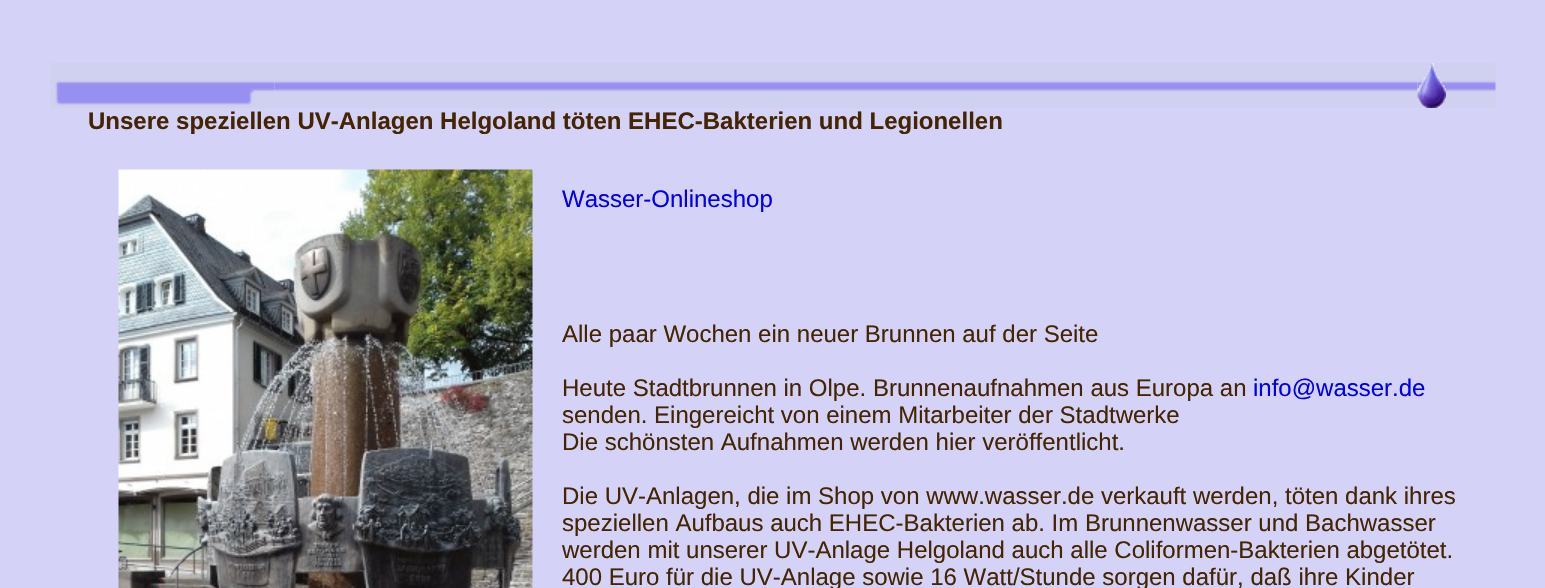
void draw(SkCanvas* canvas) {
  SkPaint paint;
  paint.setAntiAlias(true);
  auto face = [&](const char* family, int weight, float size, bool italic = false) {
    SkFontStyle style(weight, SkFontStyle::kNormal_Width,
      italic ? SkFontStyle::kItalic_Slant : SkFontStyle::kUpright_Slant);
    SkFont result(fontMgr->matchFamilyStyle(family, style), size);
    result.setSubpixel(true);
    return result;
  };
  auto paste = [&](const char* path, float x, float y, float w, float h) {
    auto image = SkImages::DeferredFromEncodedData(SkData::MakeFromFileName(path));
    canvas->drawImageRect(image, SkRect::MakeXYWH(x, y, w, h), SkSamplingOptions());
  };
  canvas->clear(0xffd4d2f6);
  paste("img/1.png", 50, 63, 225, 45);
  paste("img/2.png", 274, 63, 1144, 45);
  paste("img/3.png", 1417, 63, 79, 45);
  paste("img/4.png", 1417, 63, 29, 45);
  paste("img/5.png", 118, 169, 415, 419);
  auto f0 = face("Liberation Sans", 700, 24);
  paint.setColor(0xff452501);
  canvas->drawString("Unsere speziellen UV-Anlagen Helgoland töten EHEC-Bakterien und Legionellen", 88, 129, f0, paint);
  auto f1 = face("Liberation Sans", 400, 24);
  paint.setColor(0xff0000ee);
  canvas->drawString("Wasser-Onlineshop", 562, 207, f1, paint);
  paint.setColor(0xff452501);
  canvas->drawString("Alle paar Wochen ein neuer Brunnen auf der Seite", 562, 342, f1, paint);
  canvas->drawString("Heute Stadtbrunnen in Olpe. Brunnenaufnahmen aus Europa an", 562, 396, f1, paint);
  paint.setColor(0xff0000ee);
  canvas->drawString("info@wasser.de", 1253, 396, f1, paint);
  paint.setColor(0xff452501);
  {
    const struct { const char* s; float x, y; } items[] = {
      {"senden. Eingereicht von einem Mitarbeiter der Stadtwerke", 562, 423},
      {"Die schönsten Aufnahmen werden hier veröffentlicht.", 562, 450},
      {"Die UV-Anlagen, die im Shop von www.wasser.de verkauft werden, töten dank ihres", 562, 504},
      {"speziellen Aufbaus auch EHEC-Bakterien ab. Im Brunnenwasser und Bachwasser", 562, 531},
      {"werden mit unserer UV-Anlage Helgoland auch alle Coliformen-Bakterien abgetötet.", 562, 558},
      {"400 Euro für die UV-Anlage sowie 16 Watt/Stunde sorgen dafür, daß ihre Kinder", 562, 585},
    };
    for (auto [s, x, y] : items) {
      canvas->drawString(s, x, y, f1, paint);
    }
  }
}
